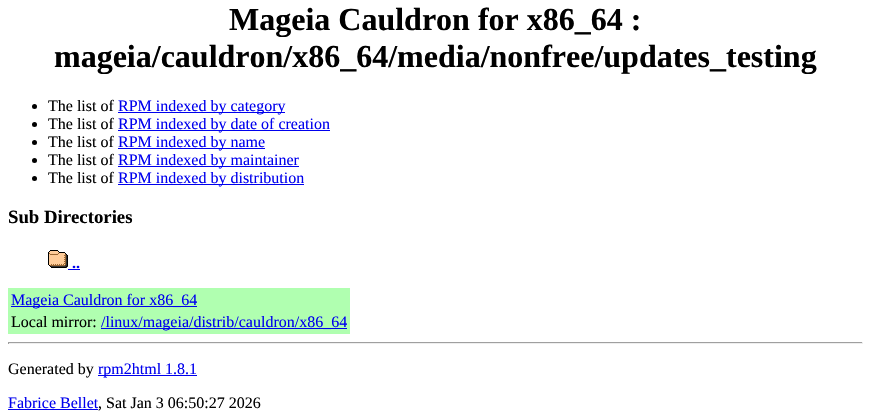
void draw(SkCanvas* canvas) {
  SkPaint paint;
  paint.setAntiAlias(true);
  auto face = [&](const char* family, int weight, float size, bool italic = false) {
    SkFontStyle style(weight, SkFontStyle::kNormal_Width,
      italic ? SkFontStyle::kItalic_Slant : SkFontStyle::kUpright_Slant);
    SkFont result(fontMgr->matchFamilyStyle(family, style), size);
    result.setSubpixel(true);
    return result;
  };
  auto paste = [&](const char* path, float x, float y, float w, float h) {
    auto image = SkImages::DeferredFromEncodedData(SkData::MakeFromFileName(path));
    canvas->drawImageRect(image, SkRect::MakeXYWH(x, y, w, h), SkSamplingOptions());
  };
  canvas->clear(0xffffffff);
  paint.setColor(0xff000000);
  canvas->drawCircle(34.5f, 106.5f, 2.5f, paint);
  paint.setColor(0xff0000ee);
  canvas->drawRect(SkRect::MakeXYWH(118, 112, 167, 1), paint);
  paint.setColor(0xff000000);
  canvas->drawCircle(34.5f, 124.5f, 2.5f, paint);
  paint.setColor(0xff0000ee);
  canvas->drawRect(SkRect::MakeXYWH(118, 130, 212, 1), paint);
  paint.setColor(0xff000000);
  canvas->drawCircle(34.5f, 142.5f, 2.5f, paint);
  paint.setColor(0xff0000ee);
  canvas->drawRect(SkRect::MakeXYWH(118, 148, 147, 1), paint);
  paint.setColor(0xff000000);
  canvas->drawCircle(34.5f, 160.5f, 2.5f, paint);
  paint.setColor(0xff0000ee);
  canvas->drawRect(SkRect::MakeXYWH(118, 166, 181, 1), paint);
  paint.setColor(0xff000000);
  canvas->drawCircle(34.5f, 178.5f, 2.5f, paint);
  paint.setColor(0xff0000ee);
  canvas->drawRect(SkRect::MakeXYWH(118, 184, 186, 1), paint);
  paste("img/1.png", 48, 250, 20, 18);
  {
    const struct { float x, y, w, h; SkColor color; } items[] = {
      {68, 269, 12, 1, 0xff0000ee},
      {8, 288, 342, 46, 0xffb0ffb0},
      {11, 306, 186, 1, 0xff0000ee},
      {101, 328, 246, 1, 0xff0000ee},
      {8, 342, 855, 1, 0xff9f9f9f},
      {862, 342, 1, 2, 0xffeeeeee},
      {8, 343, 855, 1, 0xffeeeeee},
      {8, 342, 1, 2, 0xff9f9f9f},
      {98, 375, 99, 1, 0xff0000ee},
      {8, 409, 90, 1, 0xff0000ee},
    };
    for (auto [x, y, w, h, color] : items) {
      paint.setColor(color);
      canvas->drawRect(SkRect::MakeXYWH(x, y, w, h), paint);
    }
  }
  auto f0 = face("Liberation Serif", 700, 32);
  paint.setColor(0xff000000);
  canvas->drawString("Mageia Cauldron for x86_64 :", 229, 30, f0, paint);
  canvas->drawString("mageia/cauldron/x86_64/media/nonfree/updates_testing", 54, 67, f0, paint);
  auto f1 = face("Liberation Serif", 400, 16);
  canvas->drawString("The list of", 48, 111, f1, paint);
  paint.setColor(0xff0000ee);
  canvas->drawString("RPM indexed by category", 118, 111, f1, paint);
  paint.setColor(0xff000000);
  canvas->drawString("The list of", 48, 129, f1, paint);
  paint.setColor(0xff0000ee);
  canvas->drawString("RPM indexed by date of creation", 118, 129, f1, paint);
  paint.setColor(0xff000000);
  canvas->drawString("The list of", 48, 147, f1, paint);
  paint.setColor(0xff0000ee);
  canvas->drawString("RPM indexed by name", 118, 147, f1, paint);
  paint.setColor(0xff000000);
  canvas->drawString("The list of", 48, 165, f1, paint);
  paint.setColor(0xff0000ee);
  canvas->drawString("RPM indexed by maintainer", 118, 165, f1, paint);
  paint.setColor(0xff000000);
  canvas->drawString("The list of", 48, 183, f1, paint);
  paint.setColor(0xff0000ee);
  canvas->drawString("RPM indexed by distribution", 118, 183, f1, paint);
  auto f2 = face("Liberation Serif", 700, 18.75f);
  paint.setColor(0xff000000);
  canvas->drawString("Sub Directories", 8, 223, f2, paint);
  auto f3 = face("Liberation Serif", 700, 16);
  paint.setColor(0xff0000ee);
  canvas->drawString("..", 72, 268, f3, paint);
  canvas->drawString("Mageia Cauldron for x86_64", 11, 305, f1, paint);
  paint.setColor(0xff000000);
  canvas->drawString("Local mirror:", 11, 327, f1, paint);
  paint.setColor(0xff0000ee);
  canvas->drawString("/linux/mageia/distrib/cauldron/x86_64", 101, 327, f1, paint);
  paint.setColor(0xff000000);
  canvas->drawString("Generated by", 8, 374, f1, paint);
  paint.setColor(0xff0000ee);
  canvas->drawString("rpm2html 1.8.1", 98, 374, f1, paint);
  canvas->drawString("Fabrice Bellet", 8, 408, f1, paint);
  paint.setColor(0xff000000);
  canvas->drawString(", Sat Jan 3 06:50:27 2026", 98, 408, f1, paint);
}
